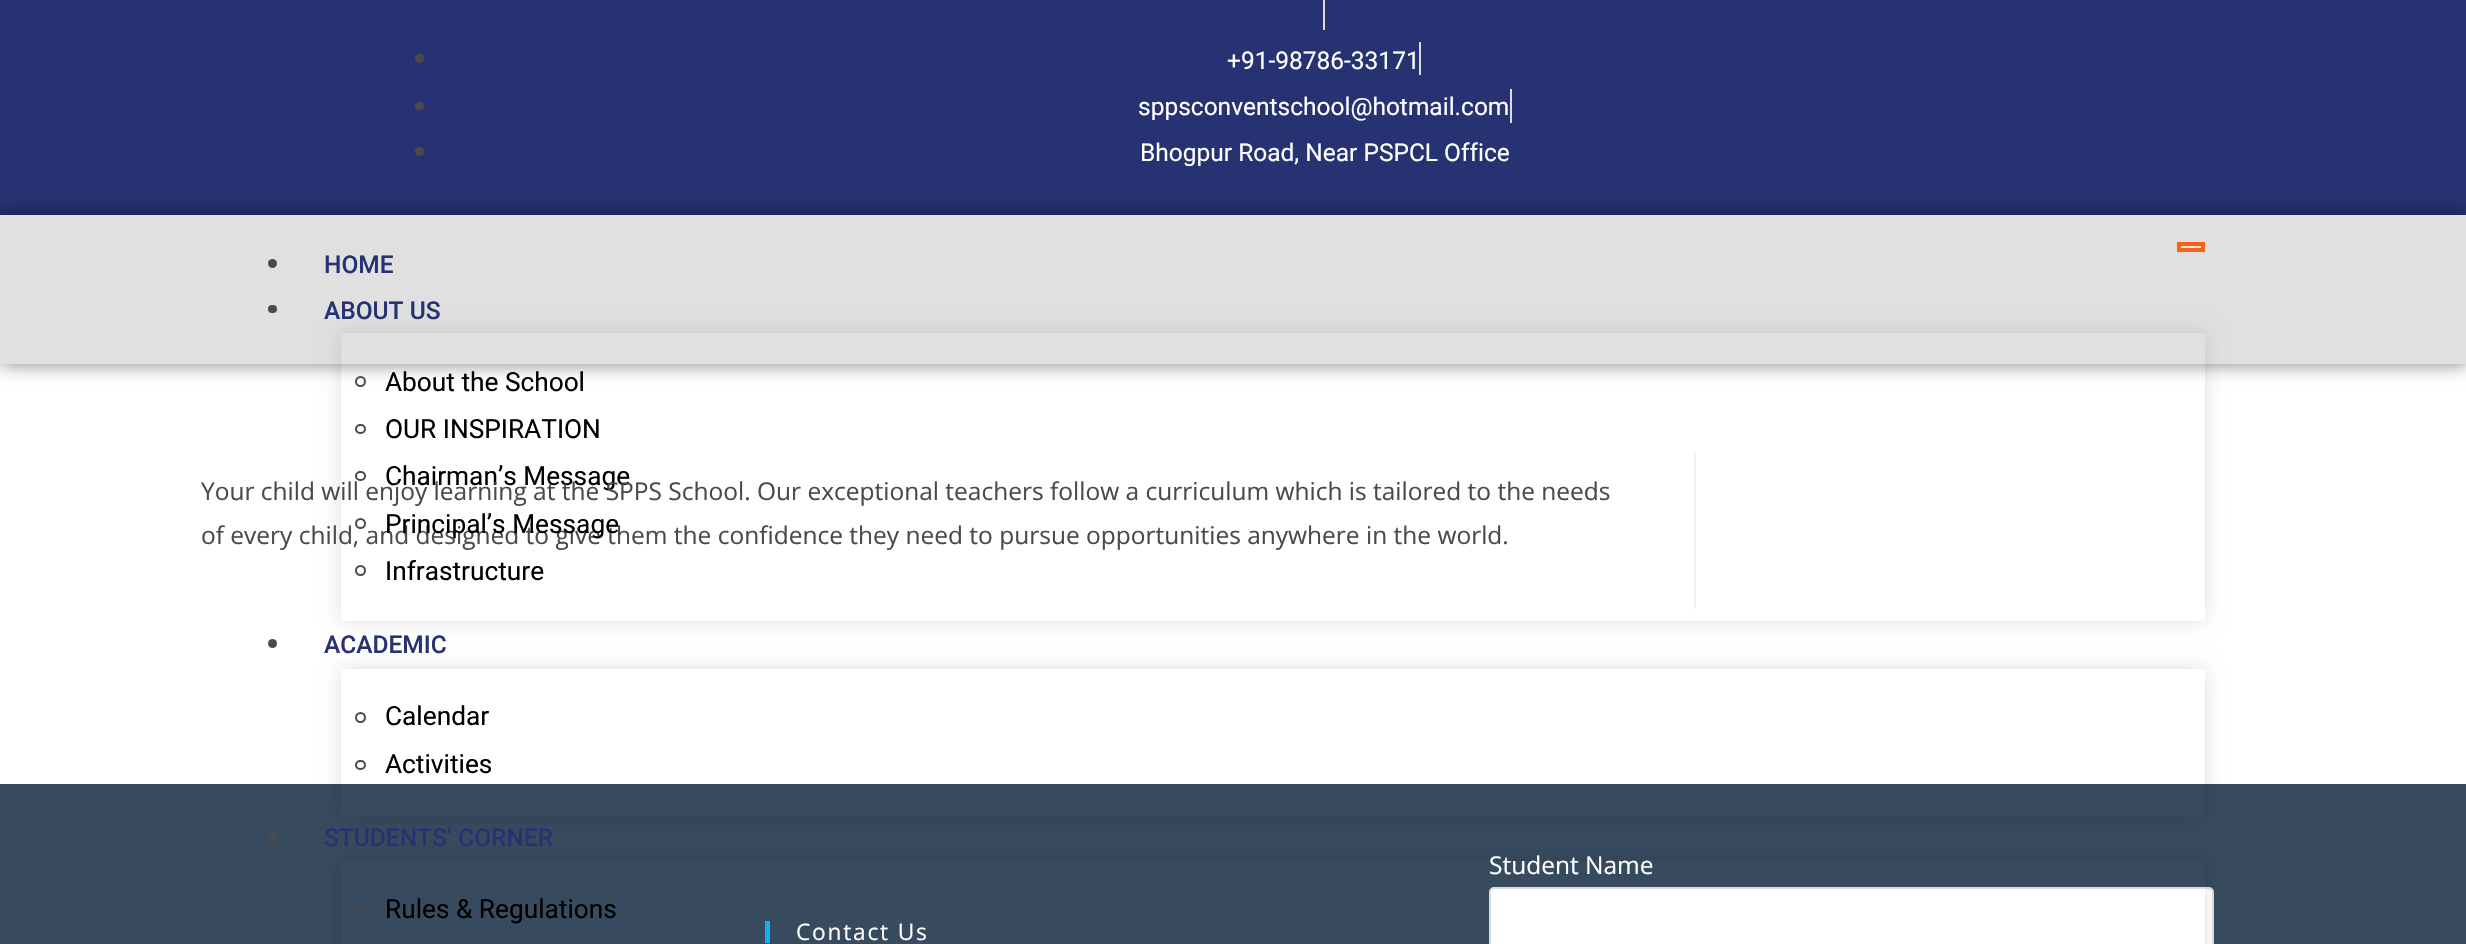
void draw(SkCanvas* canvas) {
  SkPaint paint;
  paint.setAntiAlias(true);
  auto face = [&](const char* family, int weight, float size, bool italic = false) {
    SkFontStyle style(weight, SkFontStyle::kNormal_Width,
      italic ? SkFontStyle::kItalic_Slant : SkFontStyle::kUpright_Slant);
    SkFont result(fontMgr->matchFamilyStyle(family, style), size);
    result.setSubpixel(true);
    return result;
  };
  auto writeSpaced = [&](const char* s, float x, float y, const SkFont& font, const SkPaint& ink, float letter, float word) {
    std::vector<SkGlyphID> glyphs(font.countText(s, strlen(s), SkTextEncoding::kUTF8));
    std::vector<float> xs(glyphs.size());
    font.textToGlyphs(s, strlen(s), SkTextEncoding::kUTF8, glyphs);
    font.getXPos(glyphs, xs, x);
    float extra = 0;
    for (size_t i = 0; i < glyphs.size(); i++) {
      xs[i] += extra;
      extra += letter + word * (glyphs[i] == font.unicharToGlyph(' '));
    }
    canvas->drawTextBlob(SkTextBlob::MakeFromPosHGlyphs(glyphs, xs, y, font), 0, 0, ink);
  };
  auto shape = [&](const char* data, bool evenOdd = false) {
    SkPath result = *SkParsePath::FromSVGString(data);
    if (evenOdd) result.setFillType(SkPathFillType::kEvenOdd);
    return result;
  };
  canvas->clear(0xffffffff);
  paint.setColor(0xff273272);
  canvas->drawRect(SkRect::MakeXYWH(0, 0, 2466, 215), paint);
  paint.setColor(0xffdddddd);
  canvas->drawRect(SkRect::MakeXYWH(1323, 0, 2, 30), paint);
  paint.setColor(0xff4a4a4a);
  canvas->drawCircle(419.5f, 58.5f, 4.5f, paint);
  paint.setColor(0xffdddddd);
  canvas->drawRect(SkRect::MakeXYWH(1419, 42, 2, 33), paint);
  paint.setColor(0xff4a4a4a);
  canvas->drawRoundRect(SkRect::MakeXYWH(415, 102, 9, 8), 4, 4, paint);
  paint.setColor(0xffdddddd);
  canvas->drawRect(SkRect::MakeXYWH(1510, 89, 2, 34), paint);
  paint.setColor(0xff4a4a4a);
  canvas->drawCircle(419.5f, 151.5f, 4.5f, paint);
  paint.setColor(0x80000000);
  paint.setMaskFilter(SkMaskFilter::MakeBlur(kNormal_SkBlurStyle, 9));
  canvas->drawRect(SkRect::MakeXYWH(0, 215, 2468, 149), paint);
  paint.setMaskFilter(nullptr);
  paint.setColor(0xffe0e0e0);
  canvas->drawRect(SkRect::MakeXYWH(0, 215, 2466, 149), paint);
  paint.setColor(0xffefefef);
  canvas->drawRect(SkRect::MakeXYWH(2179, 244, 24, 6), paint);
  paint.setStroke(true);
  paint.setStrokeWidth(4);
  paint.setColor(0xffff5e13);
  canvas->drawRect(SkRect::MakeXYWH(2179, 244, 24, 6), paint);
  paint.setStroke(false);
  paint.setColor(0xff4a4a4a);
  canvas->drawCircle(272.5f, 263.5f, 4.5f, paint);
  canvas->drawRoundRect(SkRect::MakeXYWH(268, 305, 9, 8), 4, 4, paint);
  paint.setColor(0xfff1f1f1);
  canvas->drawRect(SkRect::MakeXYWH(1694, 452, 2, 157), paint);
  canvas->save();
  canvas->clipPath(shape("M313 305H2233V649H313ZM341 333H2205V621H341Z", true), true);
  paint.setColor(0x1f000000);
  paint.setMaskFilter(SkMaskFilter::MakeBlur(kNormal_SkBlurStyle, 9));
  canvas->drawRect(SkRect::MakeXYWH(341, 333, 1864, 288), paint);
  paint.setMaskFilter(nullptr);
  canvas->restore();
  paint.setStroke(true);
  paint.setStrokeWidth(2);
  paint.setColor(0xff4a4a4a);
  canvas->drawCircle(360.5f, 381.5f, 4.5f, paint);
  canvas->drawRoundRect(SkRect::MakeXYWH(356, 425, 9, 8), 4, 4, paint);
  canvas->drawRoundRect(SkRect::MakeXYWH(356, 472, 9, 8), 4, 4, paint);
  canvas->drawCircle(360.5f, 523.5f, 4.5f, paint);
  canvas->drawCircle(360.5f, 570.5f, 4.5f, paint);
  paint.setStroke(false);
  canvas->drawCircle(272.5f, 643.5f, 4.5f, paint);
  paint.setColor(0xff374a5e);
  canvas->drawRect(SkRect::MakeXYWH(0, 784, 2466, 160), paint);
  canvas->save();
  canvas->clipPath(shape("M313 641H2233V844H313ZM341 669H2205V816H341Z", true), true);
  paint.setColor(0x1f000000);
  paint.setMaskFilter(SkMaskFilter::MakeBlur(kNormal_SkBlurStyle, 9));
  canvas->drawRect(SkRect::MakeXYWH(341, 669, 1864, 147), paint);
  paint.setMaskFilter(nullptr);
  canvas->restore();
  paint.setStroke(true);
  paint.setColor(0xff4a4a4a);
  canvas->drawCircle(360.5f, 717.5f, 4.5f, paint);
  canvas->drawRoundRect(SkRect::MakeXYWH(356, 761, 9, 8), 4, 4, paint);
  paint.setStroke(false);
  canvas->drawCircle(272.5f, 837.5f, 4.5f, paint);
  paint.setColor(0xffffffff);
  canvas->drawRoundRect(SkRect::MakeXYWH(1490, 888, 723, 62), 4, 4, paint);
  paint.setStroke(true);
  paint.setColor(0xffdddddd);
  canvas->drawRoundRect(SkRect::MakeXYWH(1490, 888, 723, 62), 4, 4, paint);
  paint.setStroke(false);
  paint.setColor(0xff13aff0);
  canvas->drawRect(SkRect::MakeXYWH(765, 921, 5, 22), paint);
  canvas->save();
  canvas->clipPath(shape("M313 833H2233V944H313ZM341 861H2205V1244H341Z", true), true);
  paint.setColor(0x1f000000);
  paint.setMaskFilter(SkMaskFilter::MakeBlur(kNormal_SkBlurStyle, 9));
  canvas->drawRect(SkRect::MakeXYWH(341, 861, 1864, 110), paint);
  paint.setMaskFilter(nullptr);
  canvas->restore();
  paint.setStroke(true);
  paint.setColor(0xff4a4a4a);
  canvas->drawRoundRect(SkRect::MakeXYWH(356, 906, 9, 8), 4, 4, paint);
  auto f0 = face("Roboto", 400, 24.5f);
  paint.setStroke(false);
  paint.setColor(0xffffffff);
  {
    const struct { const char* s; float x, y; } items[] = {
      {"+91-98786-33171", 1227, 69},
      {"sppsconventschool@hotmail.com", 1138, 115},
      {"Bhogpur Road, Near PSPCL Office", 1140, 161},
    };
    for (auto [s, x, y] : items) {
      canvas->drawString(s, x, y, f0, paint);
    }
  }
  auto f1 = face("Roboto", 500, 24.5f);
  paint.setColor(0xff273272);
  canvas->drawString("HOME", 324, 273, f1, paint);
  canvas->drawString("ABOUT US", 324, 319, f1, paint);
  auto f2 = face("Roboto", 400, 26.25f);
  paint.setColor(0xff000000);
  {
    const struct { const char* s; float x, y; } items[] = {
      {"About the School", 385, 391},
      {"OUR INSPIRATION", 385, 438},
      {"Chairman’s Message", 385, 485},
      {"Infrastructure", 385, 580},
    };
    for (auto [s, x, y] : items) {
      canvas->drawString(s, x, y, f2, paint);
    }
  }
  paint.setColor(0xff273272);
  canvas->drawString("ACADEMIC", 324, 653, f1, paint);
  paint.setColor(0xff000000);
  canvas->drawString("Calendar", 385, 725, f2, paint);
  canvas->drawString("Activities", 385, 773, f2, paint);
  paint.setColor(0xff273272);
  canvas->drawString("STUDENTS’ CORNER", 324, 846, f1, paint);
  paint.setColor(0xff000000);
  canvas->drawString("Rules & Regulations", 385, 918, f2, paint);
  auto f3 = face("Open Sans", 400, 24.5f);
  paint.setColor(0xff4a4a4a);
  canvas->drawString("Your child will enjoy learning at the SPPS School. Our exceptional teachers follow a curriculum which is tailored to the needs", 201, 500, f3, paint);
  canvas->drawString("of every child, and designed to give them the confidence they need to pursue opportunities anywhere in the world.", 201, 544, f3, paint);
  paint.setColor(0xff000000);
  canvas->drawString("Principal’s Message", 385, 533, f2, paint);
  paint.setColor(0xffffffff);
  canvas->drawString("Student Name", 1489, 874, f3, paint);
  auto f4 = face("Open Sans", 400, 22.75f);
  writeSpaced("Contact Us", 796, 940, f4, paint, 1.75f, 0);
}
